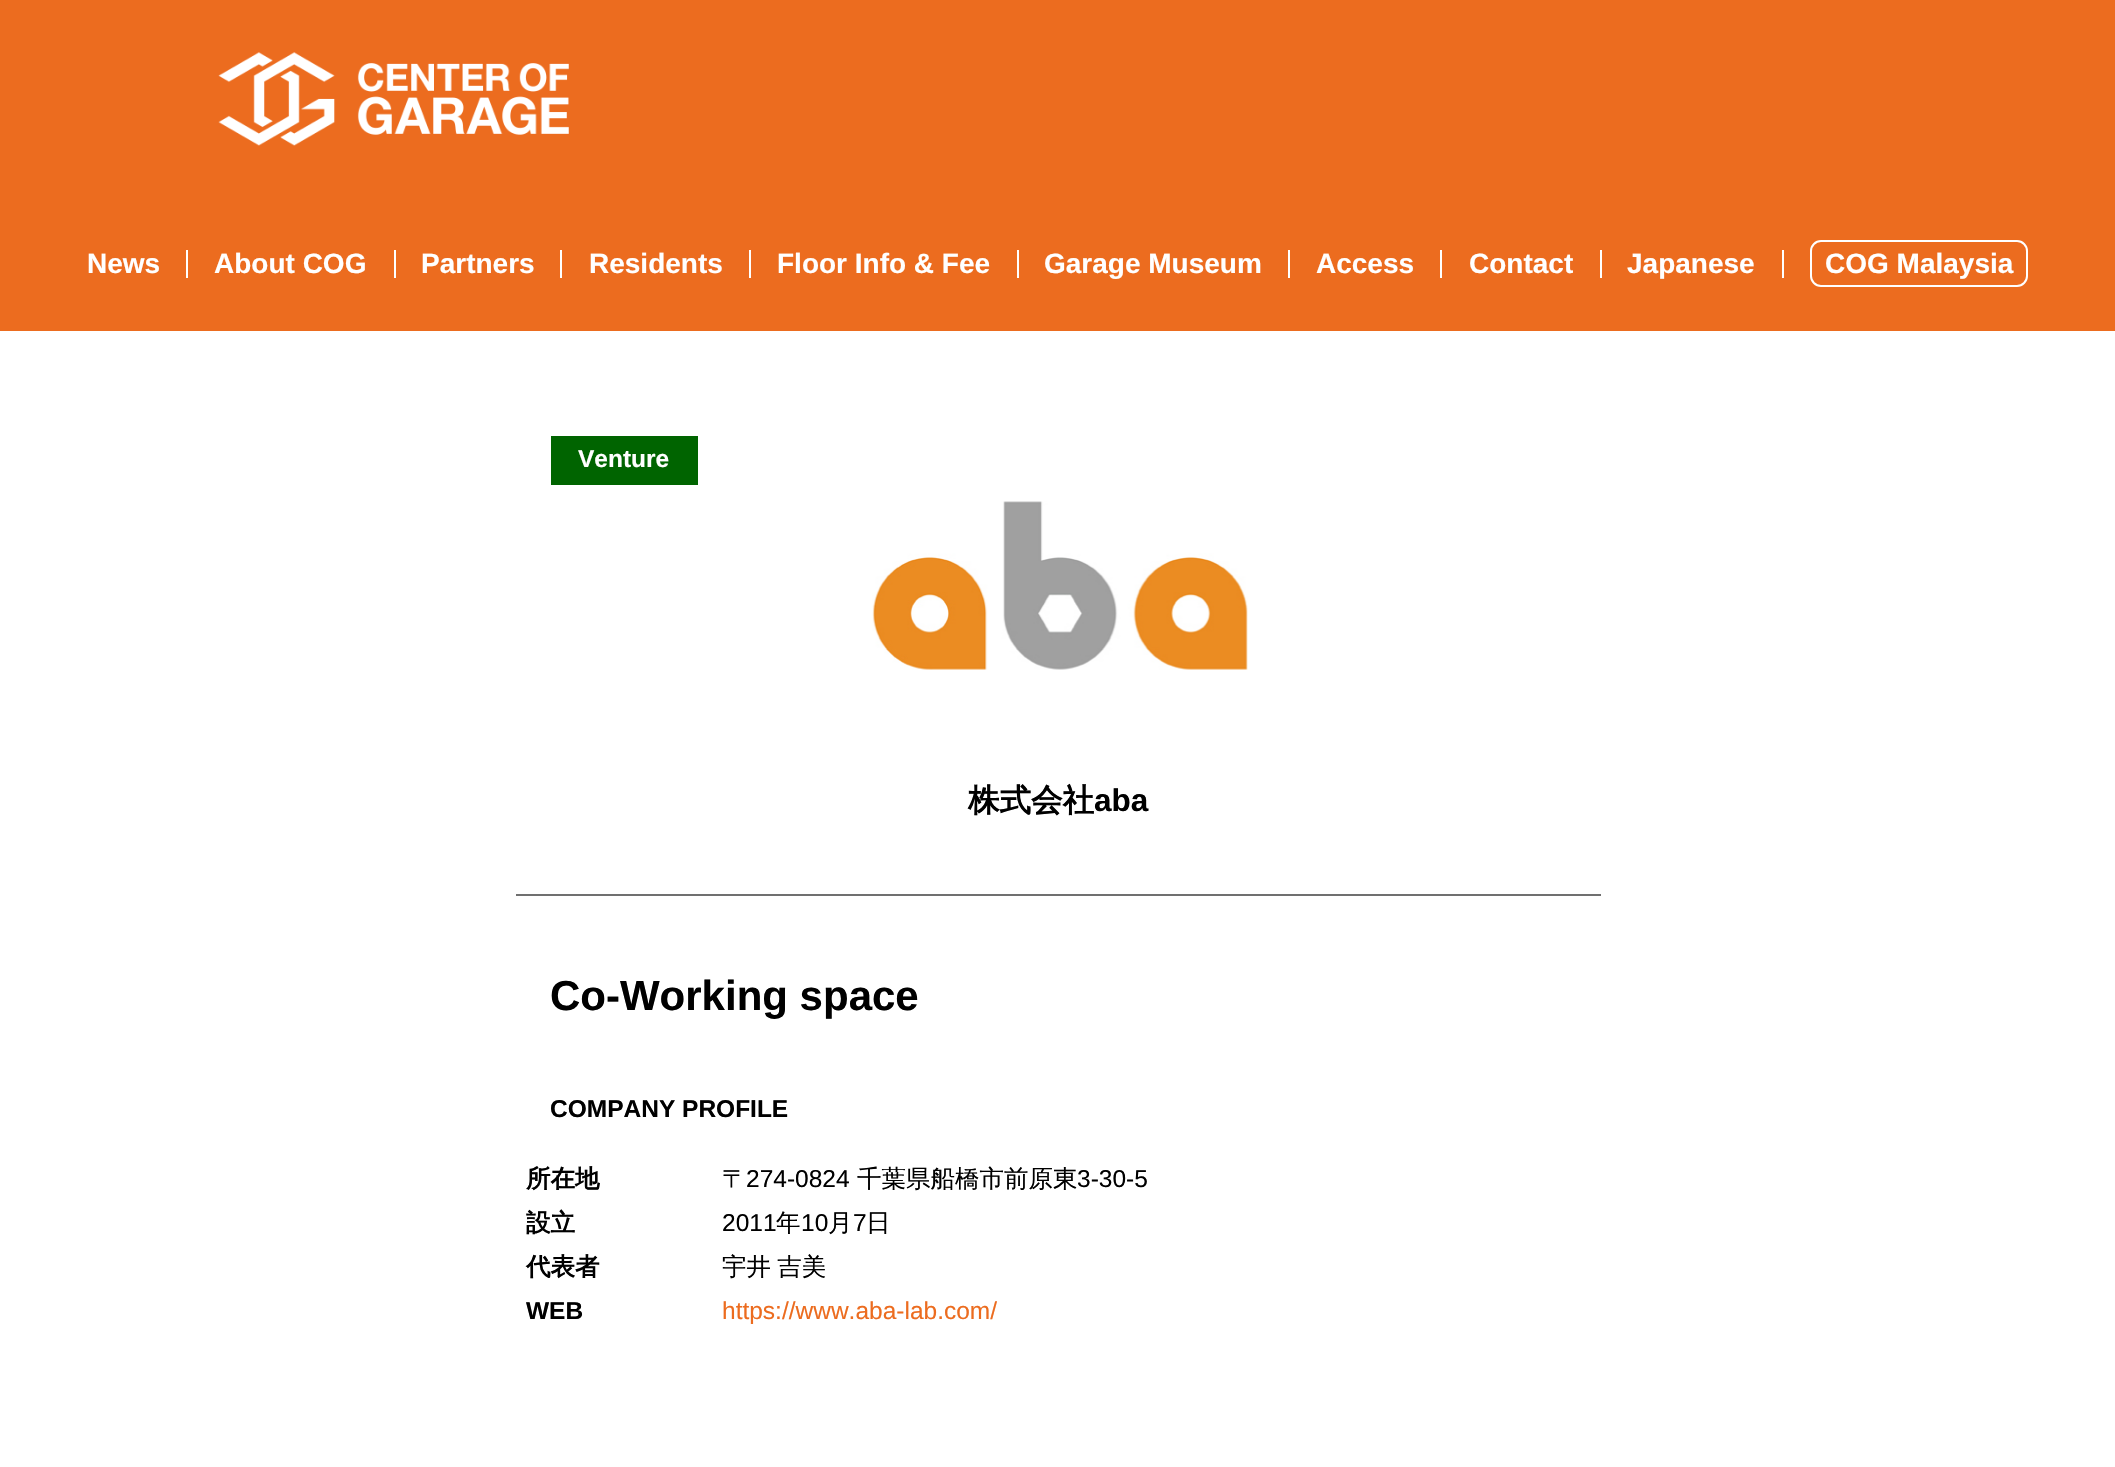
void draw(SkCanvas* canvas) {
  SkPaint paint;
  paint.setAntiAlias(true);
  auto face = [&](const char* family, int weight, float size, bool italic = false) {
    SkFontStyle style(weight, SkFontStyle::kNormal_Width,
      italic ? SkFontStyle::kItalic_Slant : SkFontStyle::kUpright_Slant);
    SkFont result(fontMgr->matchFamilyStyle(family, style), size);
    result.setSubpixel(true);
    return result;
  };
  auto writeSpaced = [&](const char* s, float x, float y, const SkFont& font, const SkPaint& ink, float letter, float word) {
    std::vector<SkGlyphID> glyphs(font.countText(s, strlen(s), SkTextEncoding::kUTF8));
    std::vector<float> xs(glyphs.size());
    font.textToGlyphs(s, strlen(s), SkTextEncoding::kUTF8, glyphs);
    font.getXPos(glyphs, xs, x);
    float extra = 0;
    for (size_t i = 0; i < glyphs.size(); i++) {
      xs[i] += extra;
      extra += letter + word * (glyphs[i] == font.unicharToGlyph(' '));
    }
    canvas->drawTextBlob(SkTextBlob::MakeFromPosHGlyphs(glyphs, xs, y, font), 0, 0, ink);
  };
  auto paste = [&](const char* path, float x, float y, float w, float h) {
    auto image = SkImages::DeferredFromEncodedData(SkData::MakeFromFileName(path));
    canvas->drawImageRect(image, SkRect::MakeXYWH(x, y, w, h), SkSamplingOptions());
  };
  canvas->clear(0xffffffff);
  paint.setColor(0xffec6c1f);
  canvas->drawRect(SkRect::MakeXYWH(0, 0, 2115, 331), paint);
  paste("img/1.png", 218, 52, 351, 94);
  {
    const struct { float x, y, w, h; SkColor color; } items[] = {
      {186, 250, 2, 28, 0xffffffff},
      {394, 250, 2, 28, 0xffffffff},
      {560, 250, 2, 28, 0xffffffff},
      {749, 250, 2, 28, 0xffffffff},
      {1017, 250, 2, 28, 0xffffffff},
      {1288, 250, 2, 28, 0xffffffff},
      {1440, 250, 2, 28, 0xffffffff},
      {1600, 250, 2, 28, 0xffffffff},
      {1782, 250, 2, 28, 0xffffffff},
    };
    for (auto [x, y, w, h, color] : items) {
      paint.setColor(color);
      canvas->drawRect(SkRect::MakeXYWH(x, y, w, h), paint);
    }
  }
  paint.setStroke(true);
  paint.setStrokeWidth(2);
  canvas->drawRoundRect(SkRect::MakeXYWH(1811, 241, 216, 45), 10, 10, paint);
  paint.setStroke(false);
  paint.setColor(0xff006400);
  canvas->drawRect(SkRect::MakeXYWH(551, 436, 147, 49), paint);
  paste("img/2.png", 872, 501, 376, 169);
  paint.setColor(0xff707070);
  canvas->drawRect(SkRect::MakeXYWH(516, 894, 1085, 2), paint);
  auto f0 = face("Liberation Sans", 700, 28);
  paint.setColor(0xffffffff);
  {
    const struct { const char* s; float x, y; } items[] = {
      {"News", 87, 273},
      {"About COG", 214, 273},
      {"Partners", 421, 273},
      {"Residents", 589, 273},
      {"Floor Info & Fee", 777, 273},
      {"Garage Museum", 1044, 273},
      {"Access", 1316, 273},
      {"Contact", 1469, 273},
      {"Japanese", 1627, 273},
      {"COG Malaysia", 1825, 273},
    };
    for (auto [s, x, y] : items) {
      canvas->drawString(s, x, y, f0, paint);
    }
  }
  auto f1 = face("Liberation Sans", 700, 24.5f);
  canvas->drawString("Venture", 578, 467, f1, paint);
  auto f2 = face("WenQuanYi Zen Hei", 700, 31.5f);
  paint.setColor(0xff000000);
  canvas->drawString("株式会社", 968, 811, f2, paint);
  auto f3 = face("Liberation Sans", 700, 31.5f);
  canvas->drawString("aba", 1094, 811, f3, paint);
  auto f4 = face("Liberation Sans", 700, 42);
  canvas->drawString("Co-Working space", 550, 1010, f4, paint);
  canvas->drawString("COMPANY PROFILE", 550, 1117, f1, paint);
  auto f5 = face("WenQuanYi Zen Hei", 700, 24.5f);
  canvas->drawString("所在地", 526, 1187, f5, paint);
  auto f6 = face("WenQuanYi Zen Hei", 500, 24.5f);
  canvas->drawString("〒", 722, 1187, f6, paint);
  auto f7 = face("Liberation Sans", 400, 24.5f);
  canvas->drawString("274-0824", 746, 1187, f7, paint);
  canvas->drawString("千葉県船橋市前原東", 857, 1187, f6, paint);
  canvas->drawString("3-30-5", 1077, 1187, f7, paint);
  canvas->drawString("設立", 526, 1231, f5, paint);
  canvas->drawString("2011", 722, 1231, f7, paint);
  canvas->drawString("年", 776, 1231, f6, paint);
  canvas->drawString("10", 801, 1231, f7, paint);
  canvas->drawString("月", 828, 1231, f6, paint);
  canvas->drawString("7", 853, 1231, f7, paint);
  canvas->drawString("日", 866, 1231, f6, paint);
  canvas->drawString("代表者", 526, 1275, f5, paint);
  writeSpaced("宇井 吉美", 722, 1275, f6, paint, 0, -1);
  canvas->drawString("WEB", 526, 1319, f1, paint);
  paint.setColor(0xffec6c1f);
  canvas->drawString("https://www.aba-lab.com/", 722, 1319, f7, paint);
}
